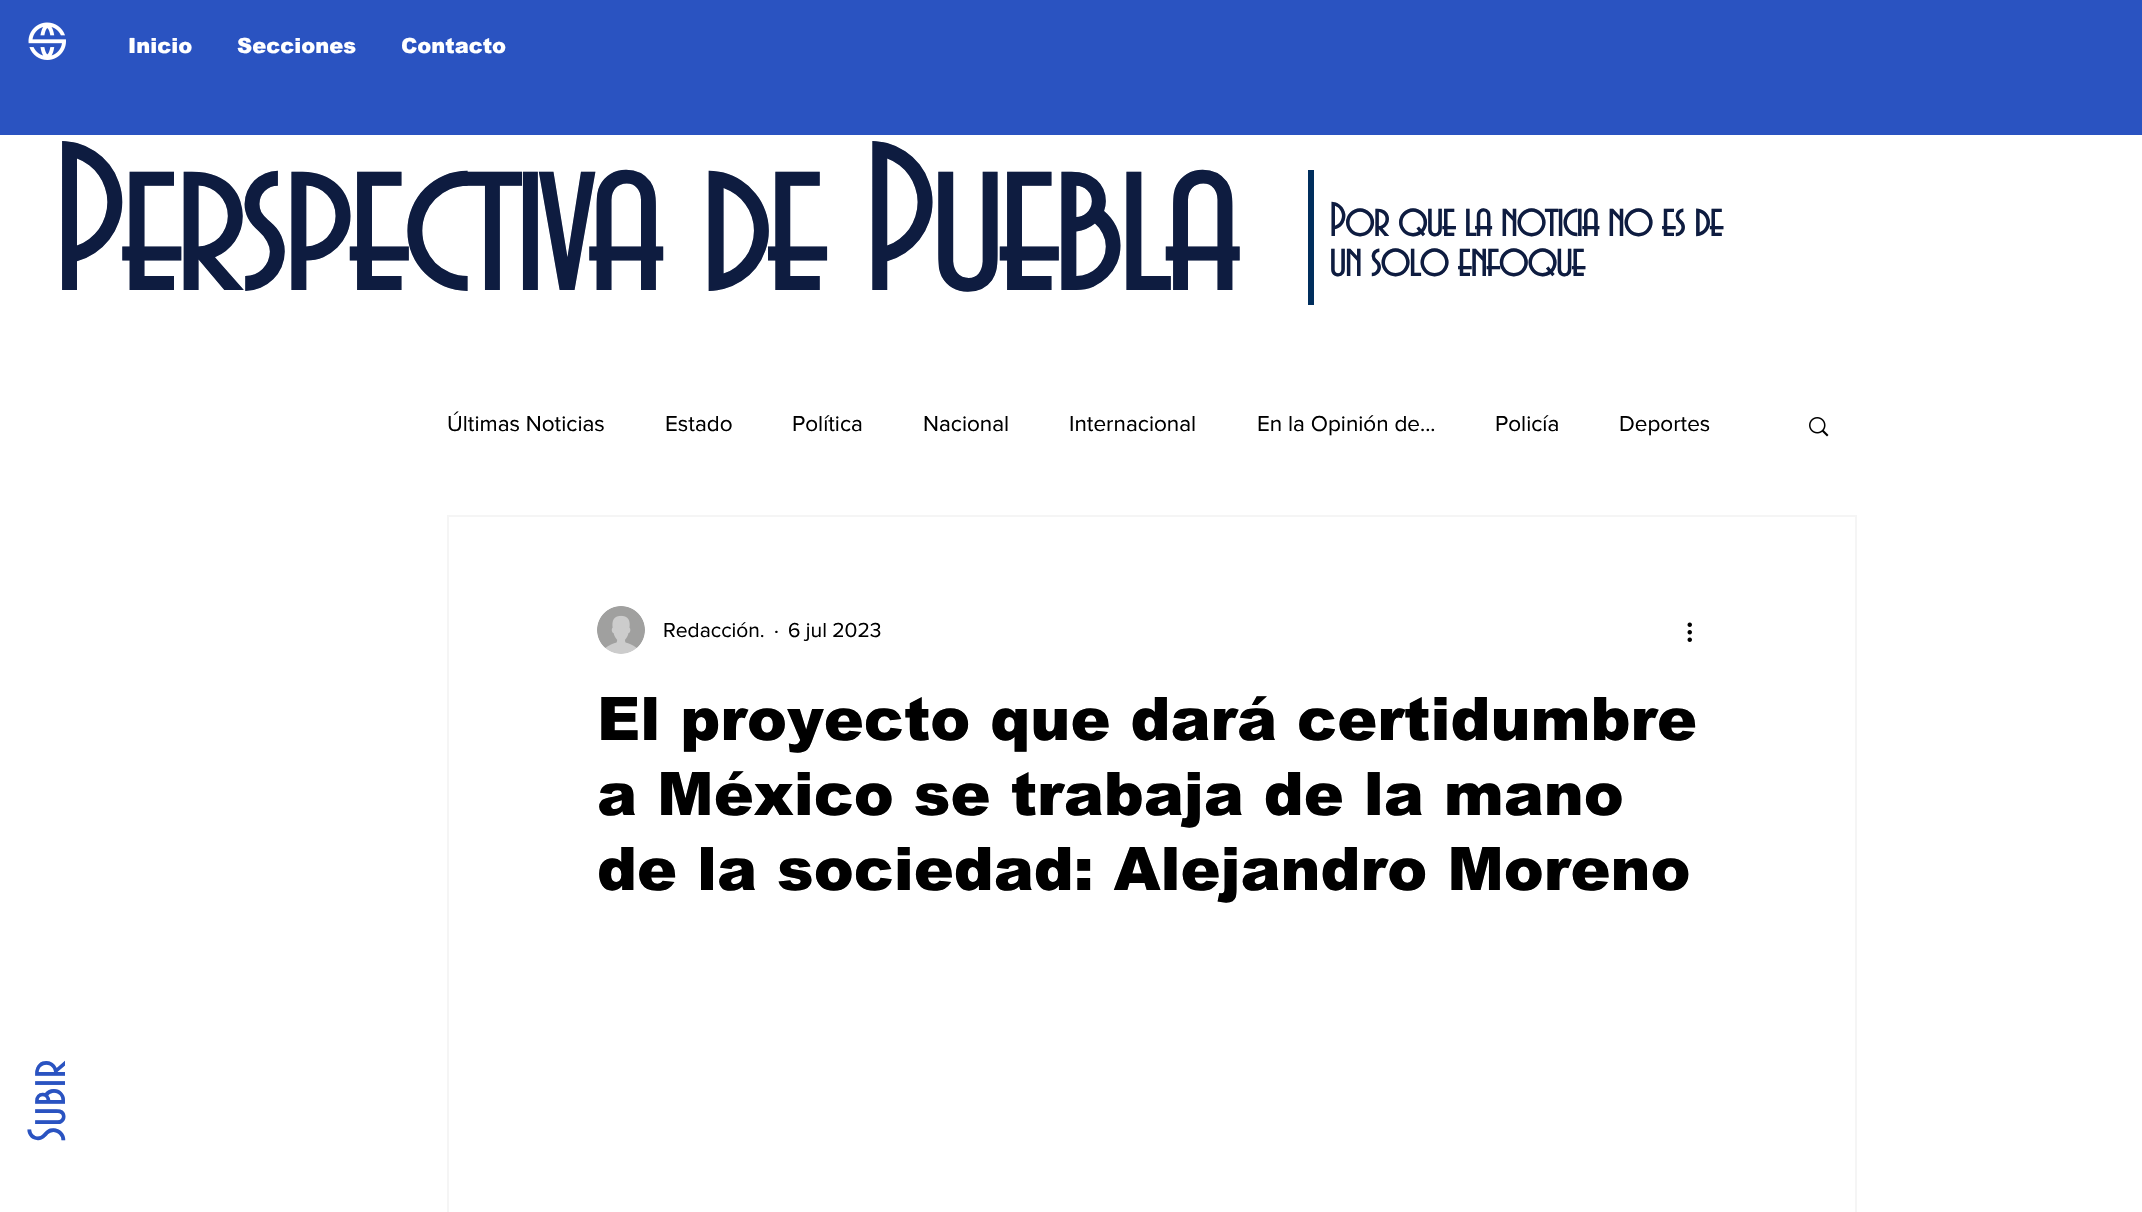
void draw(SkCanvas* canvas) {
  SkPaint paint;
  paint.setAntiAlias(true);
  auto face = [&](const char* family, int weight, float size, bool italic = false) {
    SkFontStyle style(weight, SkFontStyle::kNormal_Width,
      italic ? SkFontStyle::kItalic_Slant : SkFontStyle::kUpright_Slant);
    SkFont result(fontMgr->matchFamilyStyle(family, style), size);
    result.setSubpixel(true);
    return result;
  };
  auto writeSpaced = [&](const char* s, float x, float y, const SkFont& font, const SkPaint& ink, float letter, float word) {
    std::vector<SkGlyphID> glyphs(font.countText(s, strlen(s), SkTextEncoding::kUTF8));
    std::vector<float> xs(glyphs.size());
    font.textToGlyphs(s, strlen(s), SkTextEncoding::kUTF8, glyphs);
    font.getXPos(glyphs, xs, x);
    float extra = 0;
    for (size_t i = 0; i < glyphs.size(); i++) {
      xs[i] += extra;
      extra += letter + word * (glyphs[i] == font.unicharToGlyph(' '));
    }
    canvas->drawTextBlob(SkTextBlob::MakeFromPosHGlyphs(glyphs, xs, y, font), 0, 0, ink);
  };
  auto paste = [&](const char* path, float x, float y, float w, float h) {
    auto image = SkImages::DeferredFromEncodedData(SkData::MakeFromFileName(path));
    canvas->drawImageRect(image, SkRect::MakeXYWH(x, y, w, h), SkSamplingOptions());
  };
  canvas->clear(0xffffffff);
  paint.setColor(0xff2a53c1);
  canvas->drawRect(SkRect::MakeXYWH(0, 0, 2142, 135), paint);
  paste("img/1.png", 28, 22, 38, 38);
  paint.setColor(0xff002e5d);
  canvas->drawRect(SkRect::MakeXYWH(1308, 170, 6, 135), paint);
  paste("img/2.png", 1809, 417, 20, 20);
  paint.setStroke(true);
  paint.setStrokeWidth(2);
  paint.setColor(0xfff5f5f5);
  canvas->drawRect(SkRect::MakeXYWH(448, 516, 1408, 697), paint);
  paste("img/3.png", 597, 606, 48, 48);
  paste("img/4.png", 1687, 622, 5, 20);
  auto f0 = face("arial", 900, 21);
  paint.setStroke(false);
  paint.setColor(0xffffffff);
  {
    const struct { const char* s; float x, y; } items[] = {
      {"Inicio", 128, 53},
      {"Secciones", 237, 53},
      {"Contacto", 401, 53},
    };
    for (auto [s, x, y] : items) {
      canvas->drawString(s, x, y, f0, paint);
    }
  }
  auto f1 = face("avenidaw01", 400, 222);
  paint.setColor(0xff0e1c40);
  writeSpaced("Perspectiva de Puebla", 51, 290, f1, paint, -11.1f, 0);
  auto f2 = face("avenidaw01", 400, 51);
  writeSpaced("Por que la noticia no es de", 1329, 236, f2, paint, -2.55f, 0);
  writeSpaced("un solo enfoque", 1329, 276, f2, paint, -2.55f, 0);
  auto f3 = face("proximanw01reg", 400, 22.5f);
  paint.setColor(0xff000000);
  {
    const struct { const char* s; float x, y; } items[] = {
      {"Últimas Noticias", 447, 431},
      {"Estado", 665, 431},
      {"Política", 792, 431},
      {"Nacional", 923, 431},
      {"Internacional", 1069, 431},
      {"En la Opinión de...", 1257, 431},
      {"Policía", 1495, 431},
      {"Deportes", 1619, 431},
    };
    for (auto [s, x, y] : items) {
      canvas->drawString(s, x, y, f3, paint);
    }
  }
  auto f4 = face("proximanw01reg", 400, 21);
  {
    const struct { const char* s; float x, y; } items[] = {
      {"Redacción.", 663, 637},
      {"·", 774, 637},
      {"6 jul 2023", 788, 637},
    };
    for (auto [s, x, y] : items) {
      canvas->drawString(s, x, y, f4, paint);
    }
  }
  auto f5 = face("arial", 900, 60);
  {
    const struct { const char* s; float x, y; } items[] = {
      {"El proyecto que dará certidumbre", 597, 740},
      {"a México se trabaja de la mano", 597, 815},
      {"de la sociedad: Alejandro Moreno", 597, 890},
    };
    for (auto [s, x, y] : items) {
      canvas->drawString(s, x, y, f5, paint);
    }
  }
  auto f6 = face("avenidaw01", 400, 56);
  paint.setColor(0xff2a53c1);
  canvas->save();
  canvas->rotate(-90, 65, 1142);
  canvas->drawString("Subir", 65, 1142, f6, paint);
  canvas->restore();
}
